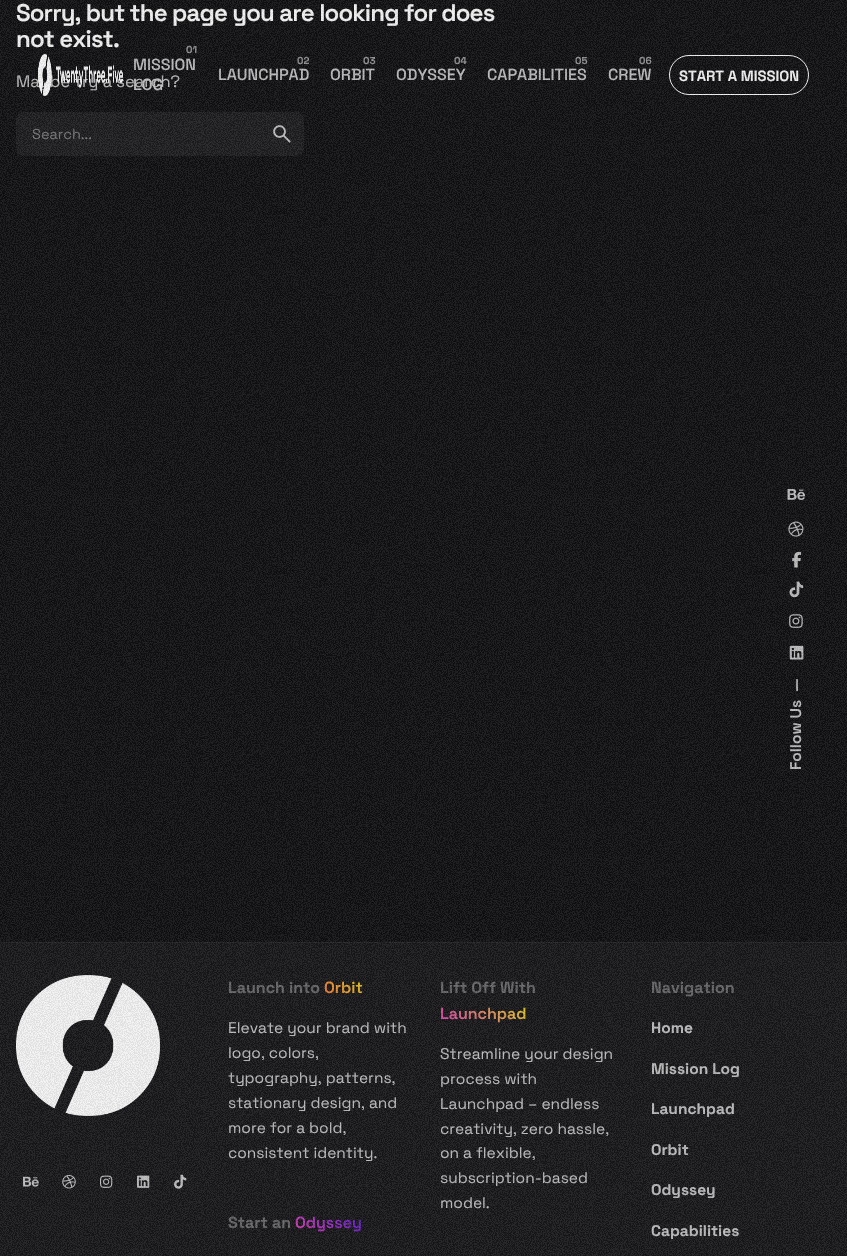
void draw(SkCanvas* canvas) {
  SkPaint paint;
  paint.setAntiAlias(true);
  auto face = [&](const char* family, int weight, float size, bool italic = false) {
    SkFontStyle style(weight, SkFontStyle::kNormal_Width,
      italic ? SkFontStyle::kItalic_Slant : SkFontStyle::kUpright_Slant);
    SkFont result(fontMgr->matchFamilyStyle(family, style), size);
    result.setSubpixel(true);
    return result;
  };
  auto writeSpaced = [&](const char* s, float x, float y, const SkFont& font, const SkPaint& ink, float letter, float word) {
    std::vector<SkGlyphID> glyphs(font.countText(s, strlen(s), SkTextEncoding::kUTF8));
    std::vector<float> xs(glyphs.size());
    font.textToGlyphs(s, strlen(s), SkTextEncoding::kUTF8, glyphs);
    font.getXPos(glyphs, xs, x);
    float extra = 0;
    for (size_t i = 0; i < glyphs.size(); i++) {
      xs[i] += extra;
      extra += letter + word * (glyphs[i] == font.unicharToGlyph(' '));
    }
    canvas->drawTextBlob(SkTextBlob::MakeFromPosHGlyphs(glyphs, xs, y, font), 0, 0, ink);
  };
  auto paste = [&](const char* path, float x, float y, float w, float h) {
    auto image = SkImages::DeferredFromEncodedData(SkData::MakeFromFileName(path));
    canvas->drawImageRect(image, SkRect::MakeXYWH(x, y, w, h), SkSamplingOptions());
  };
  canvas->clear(0xff111013);
  paint.setColor(0xff1d1c1e);
  canvas->drawRoundRect(SkRect::MakeXYWH(16, 112, 288, 44), 8, 8, paint);
  paste("img/2.png", 273, 125, 18, 18);
  paint.setStroke(true);
  paint.setStrokeWidth(1);
  paint.setColor(0xfff1f1f1);
  canvas->drawRoundRect(SkRect::MakeXYWH(669.5f, 55.5f, 139, 39), 19.5f, 19.5f, paint);
  paste("img/4.png", 787, 489, 18, 11);
  paste("img/5.png", 788, 521, 16, 16);
  paste("img/6.png", 792, 551, 10, 17);
  paste("img/7.png", 789, 581, 15, 17);
  paste("img/8.png", 789, 614, 14, 14);
  paste("img/9.png", 789, 645, 15, 15);
  paint.setStroke(false);
  paint.setColor(0xff18171a);
  canvas->drawRect(SkRect::MakeXYWH(0, 943, 847, 313), paint);
  paint.setColor(0xff232224);
  canvas->drawRect(SkRect::MakeXYWH(0, 942, 847, 1), paint);
  paste("img/10.png", 16, 975, 144, 141);
  paste("img/11.png", 23, 1176, 16, 11);
  paste("img/12.png", 62, 1175, 14, 14);
  paste("img/13.png", 100, 1175, 13, 13);
  paste("img/14.png", 137, 1175, 13, 13);
  paste("img/15.png", 174, 1174, 13, 15);
  auto f0 = face("Space Grotesk", 600, 24);
  paint.setColor(0xfff1f1f1);
  writeSpaced("Sorry, but the page you are looking for does", 16, 21, f0, paint, -0.85f, 0);
  writeSpaced("not exist.", 16, 47, f0, paint, -0.85f, 0);
  auto f1 = face("Space Grotesk", 400, 16.5f);
  paint.setColor(0xffbab9ba);
  canvas->drawString("Maybe try a search?", 16, 87, f1, paint);
  auto f2 = face("Space Grotesk", 400, 14.5f);
  paint.setColor(0xff717173);
  canvas->drawString("Search...", 32, 139, f2, paint);
  paste("img/3.png", 38, 54, 85, 42);
  auto f3 = face("Space Grotesk", 700, 10);
  paint.setColor(0xff8f8e90);
  canvas->drawString("01", 186, 53, f3, paint);
  auto f4 = face("Space Grotesk", 500, 16);
  paint.setColor(0xffbab9ba);
  canvas->drawString("MISSION", 133, 70, f4, paint);
  paint.setColor(0xffc2c2c2);
  canvas->drawString("LOG", 133, 90, f4, paint);
  paint.setColor(0xff8f8e90);
  canvas->drawString("02", 297, 64, f3, paint);
  paint.setColor(0xffbab9ba);
  canvas->drawString("LAUNCHPAD", 218, 80, f4, paint);
  paint.setColor(0xff8f8e90);
  canvas->drawString("03", 363, 64, f3, paint);
  paint.setColor(0xffbab9ba);
  canvas->drawString("ORBIT", 330, 80, f4, paint);
  paint.setColor(0xff8f8e90);
  canvas->drawString("04", 454, 64, f3, paint);
  paint.setColor(0xffbab9ba);
  canvas->drawString("ODYSSEY", 396, 80, f4, paint);
  paint.setColor(0xff8f8e90);
  canvas->drawString("05", 575, 64, f3, paint);
  paint.setColor(0xffbab9ba);
  canvas->drawString("CAPABILITIES", 487, 80, f4, paint);
  paint.setColor(0xff8f8e90);
  canvas->drawString("06", 639, 64, f3, paint);
  paint.setColor(0xffbab9ba);
  canvas->drawString("CREW", 608, 80, f4, paint);
  auto f5 = face("Space Grotesk", 600, 14.75f);
  paint.setColor(0xfff1f1f1);
  canvas->drawString("START A MISSION", 679, 81, f5, paint);
  auto f6 = face("Space Grotesk", 600, 15.5f);
  paint.setColor(0xffbab9ba);
  canvas->save();
  canvas->rotate(-90, 801, 692);
  canvas->drawString("—", 801, 692, f6, paint);
  canvas->restore();
  canvas->save();
  canvas->rotate(-90, 801, 770);
  canvas->drawString("Follow Us", 801, 770, f6, paint);
  canvas->restore();
  auto f7 = face("Space Grotesk", 700, 16);
  paint.setColor(0xff656467);
  canvas->drawString("Launch into", 228, 993, f7, paint);
  auto f8 = face("Space Grotesk", 600, 16);
  {
    const SkColor colors[] = {0xffeb6c39, 0xffddca1b};
    const float stops[] = {0, 1};
    const SkPoint ends[] = {{328, 1002}, {358, 973}};
    paint.setShader(SkGradientShader::MakeLinear(ends, colors, stops, 2, SkTileMode::kClamp));
    paint.setAlpha(255);
  }
  canvas->drawString("Orbit", 324, 993, f8, paint);
  auto f9 = face("Space Grotesk", 400, 15.5f);
  paint.setShader(nullptr);
  paint.setColor(0xffbab9ba);
  {
    const struct { const char* s; float x, y; } items[] = {
      {"Elevate your brand with", 228, 1033},
      {"logo, colors,", 228, 1058},
      {"typography, patterns,", 228, 1083},
      {"stationary design, and", 228, 1108},
      {"more for a bold,", 228, 1133},
      {"consistent identity.", 228, 1158},
    };
    for (auto [s, x, y] : items) {
      canvas->drawString(s, x, y, f9, paint);
    }
  }
  paint.setColor(0xff656467);
  canvas->drawString("Start an", 228, 1228, f7, paint);
  {
    const SkColor colors[] = {0xffd43db0, 0xff4f1bc3};
    const float stops[] = {0, 1};
    const SkPoint ends[] = {{306, 1244}, {350, 1200}};
    paint.setShader(SkGradientShader::MakeLinear(ends, colors, stops, 2, SkTileMode::kClamp));
    paint.setAlpha(255);
  }
  canvas->drawString("Odyssey", 295, 1228, f8, paint);
  paint.setShader(nullptr);
  paint.setColor(0xff656467);
  canvas->drawString("Lift Off With", 440, 993, f7, paint);
  {
    const SkColor colors[] = {0xffd43db0, 0xffddca1b};
    const float stops[] = {0, 1};
    const SkPoint ends[] = {{456, 1040}, {510, 986}};
    paint.setShader(SkGradientShader::MakeLinear(ends, colors, stops, 2, SkTileMode::kClamp));
    paint.setAlpha(255);
  }
  canvas->drawString("Launchpad", 440, 1019, f8, paint);
  paint.setShader(nullptr);
  paint.setColor(0xffbab9ba);
  {
    const struct { const char* s; float x, y; } items[] = {
      {"Streamline your design", 440, 1059},
      {"process with", 440, 1084},
      {"Launchpad – endless", 440, 1109},
      {"creativity, zero hassle,", 440, 1134},
      {"on a flexible,", 440, 1158},
      {"subscription-based", 440, 1183},
      {"model.", 440, 1208},
    };
    for (auto [s, x, y] : items) {
      canvas->drawString(s, x, y, f9, paint);
    }
  }
  paint.setColor(0xff656467);
  canvas->drawString("Navigation", 651, 993, f7, paint);
  auto f10 = face("Space Grotesk", 700, 15.5f);
  paint.setColor(0xffbab9ba);
  {
    const struct { const char* s; float x, y; } items[] = {
      {"Home", 651, 1033},
      {"Mission Log", 651, 1074},
      {"Launchpad", 651, 1114},
      {"Orbit", 651, 1155},
      {"Odyssey", 651, 1195},
      {"Capabilities", 651, 1236},
    };
    for (auto [s, x, y] : items) {
      canvas->drawString(s, x, y, f10, paint);
    }
  }
  paste("img/1.png", 0, 0, 847, 1256);
}
